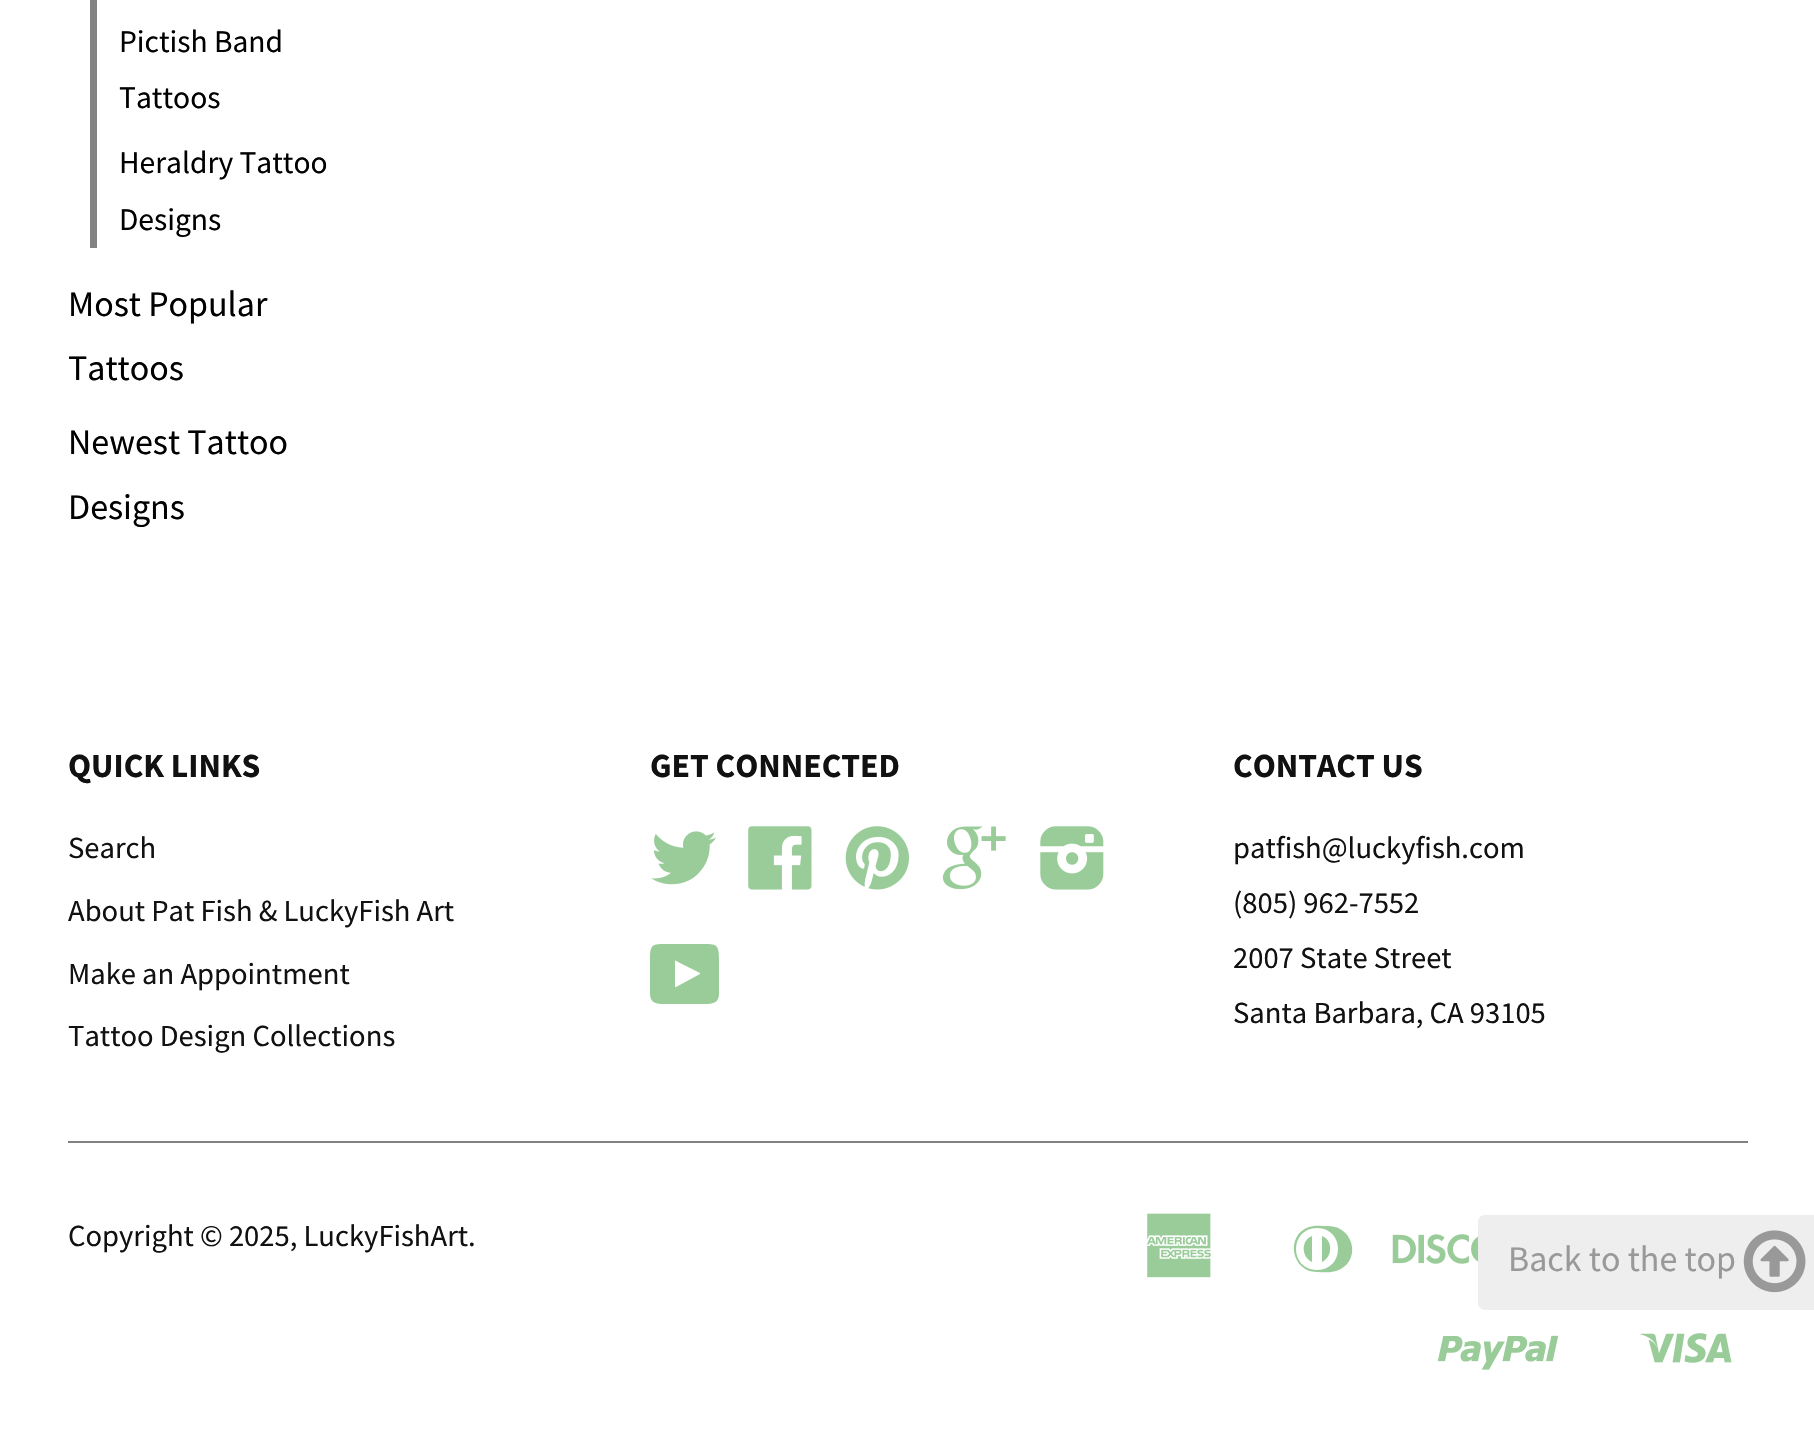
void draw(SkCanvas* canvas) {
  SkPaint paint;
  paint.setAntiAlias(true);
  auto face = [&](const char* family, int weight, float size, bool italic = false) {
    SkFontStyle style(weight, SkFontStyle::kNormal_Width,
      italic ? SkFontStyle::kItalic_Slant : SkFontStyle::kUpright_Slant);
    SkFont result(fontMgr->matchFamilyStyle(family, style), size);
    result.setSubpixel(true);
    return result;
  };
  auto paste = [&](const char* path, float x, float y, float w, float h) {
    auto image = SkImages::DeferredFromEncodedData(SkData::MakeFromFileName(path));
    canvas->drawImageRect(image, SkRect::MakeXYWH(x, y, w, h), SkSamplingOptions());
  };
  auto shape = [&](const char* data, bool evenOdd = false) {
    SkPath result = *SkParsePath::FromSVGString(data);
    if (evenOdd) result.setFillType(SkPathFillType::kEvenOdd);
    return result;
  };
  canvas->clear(0xffffffff);
  paint.setColor(0xff828282);
  canvas->drawRect(SkRect::MakeXYWH(90, 0, 7, 248), paint);
  paste("img/1.png", 651, 831, 65, 54);
  paste("img/2.png", 748, 826, 64, 64);
  paste("img/3.png", 845, 826, 64, 64);
  paste("img/4.png", 942, 826, 64, 64);
  paste("img/5.png", 1040, 826, 64, 64);
  paint.setColor(0xff99cc99);
  canvas->drawPath(shape("M650 994C650 1005 660 1004 667 1004H701C709 1004 719 1005 719 994V960C719 944 717 944 701 944H667C652 944 650 944 650 960ZM675 987V965C675 959 674 960 680 963L700 973V974L676 987Z"), paint);
  paint.setColor(0xff828282);
  canvas->drawRect(SkRect::MakeXYWH(68, 1141, 1680, 2), paint);
  paste("img/6.png", 1147, 1213, 64, 65);
  paint.setColor(0xff99cc99);
  canvas->drawPath(shape("M1328 1226C1355 1226 1362 1263 1336 1271C1330 1273 1323 1272 1317 1272C1291 1272 1285 1235 1309 1227C1315 1225 1322 1226 1328 1226ZM1317 1270C1345 1270 1345 1228 1317 1228C1289 1228 1289 1270 1317 1270ZM1312 1262C1301 1257 1301 1240 1312 1236ZM1322 1236C1333 1240 1333 1257 1322 1262Z"), paint);
  paste("img/7.png", 1392, 1234, 86, 30);
  paste("img/8.png", 1437, 1335, 122, 35);
  paste("img/9.png", 1640, 1333, 92, 30);
  paint.setColor(0xffeeeeee);
  canvas->drawPath(shape("M1485 1215H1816V1310H1485C1481 1310 1478 1307 1478 1303V1222C1478 1218 1481 1215 1485 1215Z"), paint);
  paste("img/10.png", 1743, 1230, 63, 63);
  auto f0 = face("Source Sans Pro", 400, 31.5f);
  paint.setColor(0xff000000);
  {
    const struct { const char* s; float x, y; } items[] = {
      {"Pictish Band", 119, 52},
      {"Tattoos", 119, 108},
      {"Heraldry Tattoo", 119, 173},
      {"Designs", 119, 230},
    };
    for (auto [s, x, y] : items) {
      canvas->drawString(s, x, y, f0, paint);
    }
  }
  auto f1 = face("Source Sans Pro", 400, 36);
  {
    const struct { const char* s; float x, y; } items[] = {
      {"Most Popular", 68, 316},
      {"Tattoos", 68, 380},
      {"Newest Tattoo", 68, 454},
      {"Designs", 68, 519},
    };
    for (auto [s, x, y] : items) {
      canvas->drawString(s, x, y, f1, paint);
    }
  }
  auto f2 = face("Source Sans Pro", 700, 33.75f);
  paint.setColor(0xff111111);
  canvas->drawString("QUICK LINKS", 68, 777, f2, paint);
  auto f3 = face("Source Sans Pro", 400, 30.6f);
  {
    const struct { const char* s; float x, y; } items[] = {
      {"Search", 68, 858},
      {"About Pat Fish & LuckyFish Art", 68, 921},
      {"Make an Appointment", 68, 984},
      {"Tattoo Design Collections", 68, 1046},
    };
    for (auto [s, x, y] : items) {
      canvas->drawString(s, x, y, f3, paint);
    }
  }
  canvas->drawString("GET CONNECTED", 650, 777, f2, paint);
  canvas->drawString("CONTACT US", 1233, 777, f2, paint);
  {
    const struct { const char* s; float x, y; } items[] = {
      {"patfish@luckyfish.com", 1233, 858},
      {"(805) 962-7552", 1233, 913},
      {"2007 State Street", 1233, 968},
      {"Santa Barbara, CA 93105", 1233, 1023},
      {"Copyright © 2025, LuckyFishArt.", 68, 1246},
    };
    for (auto [s, x, y] : items) {
      canvas->drawString(s, x, y, f3, paint);
    }
  }
  paint.setColor(0xff999999);
  canvas->drawString("Back to the top", 1508, 1271, f1, paint);
}
